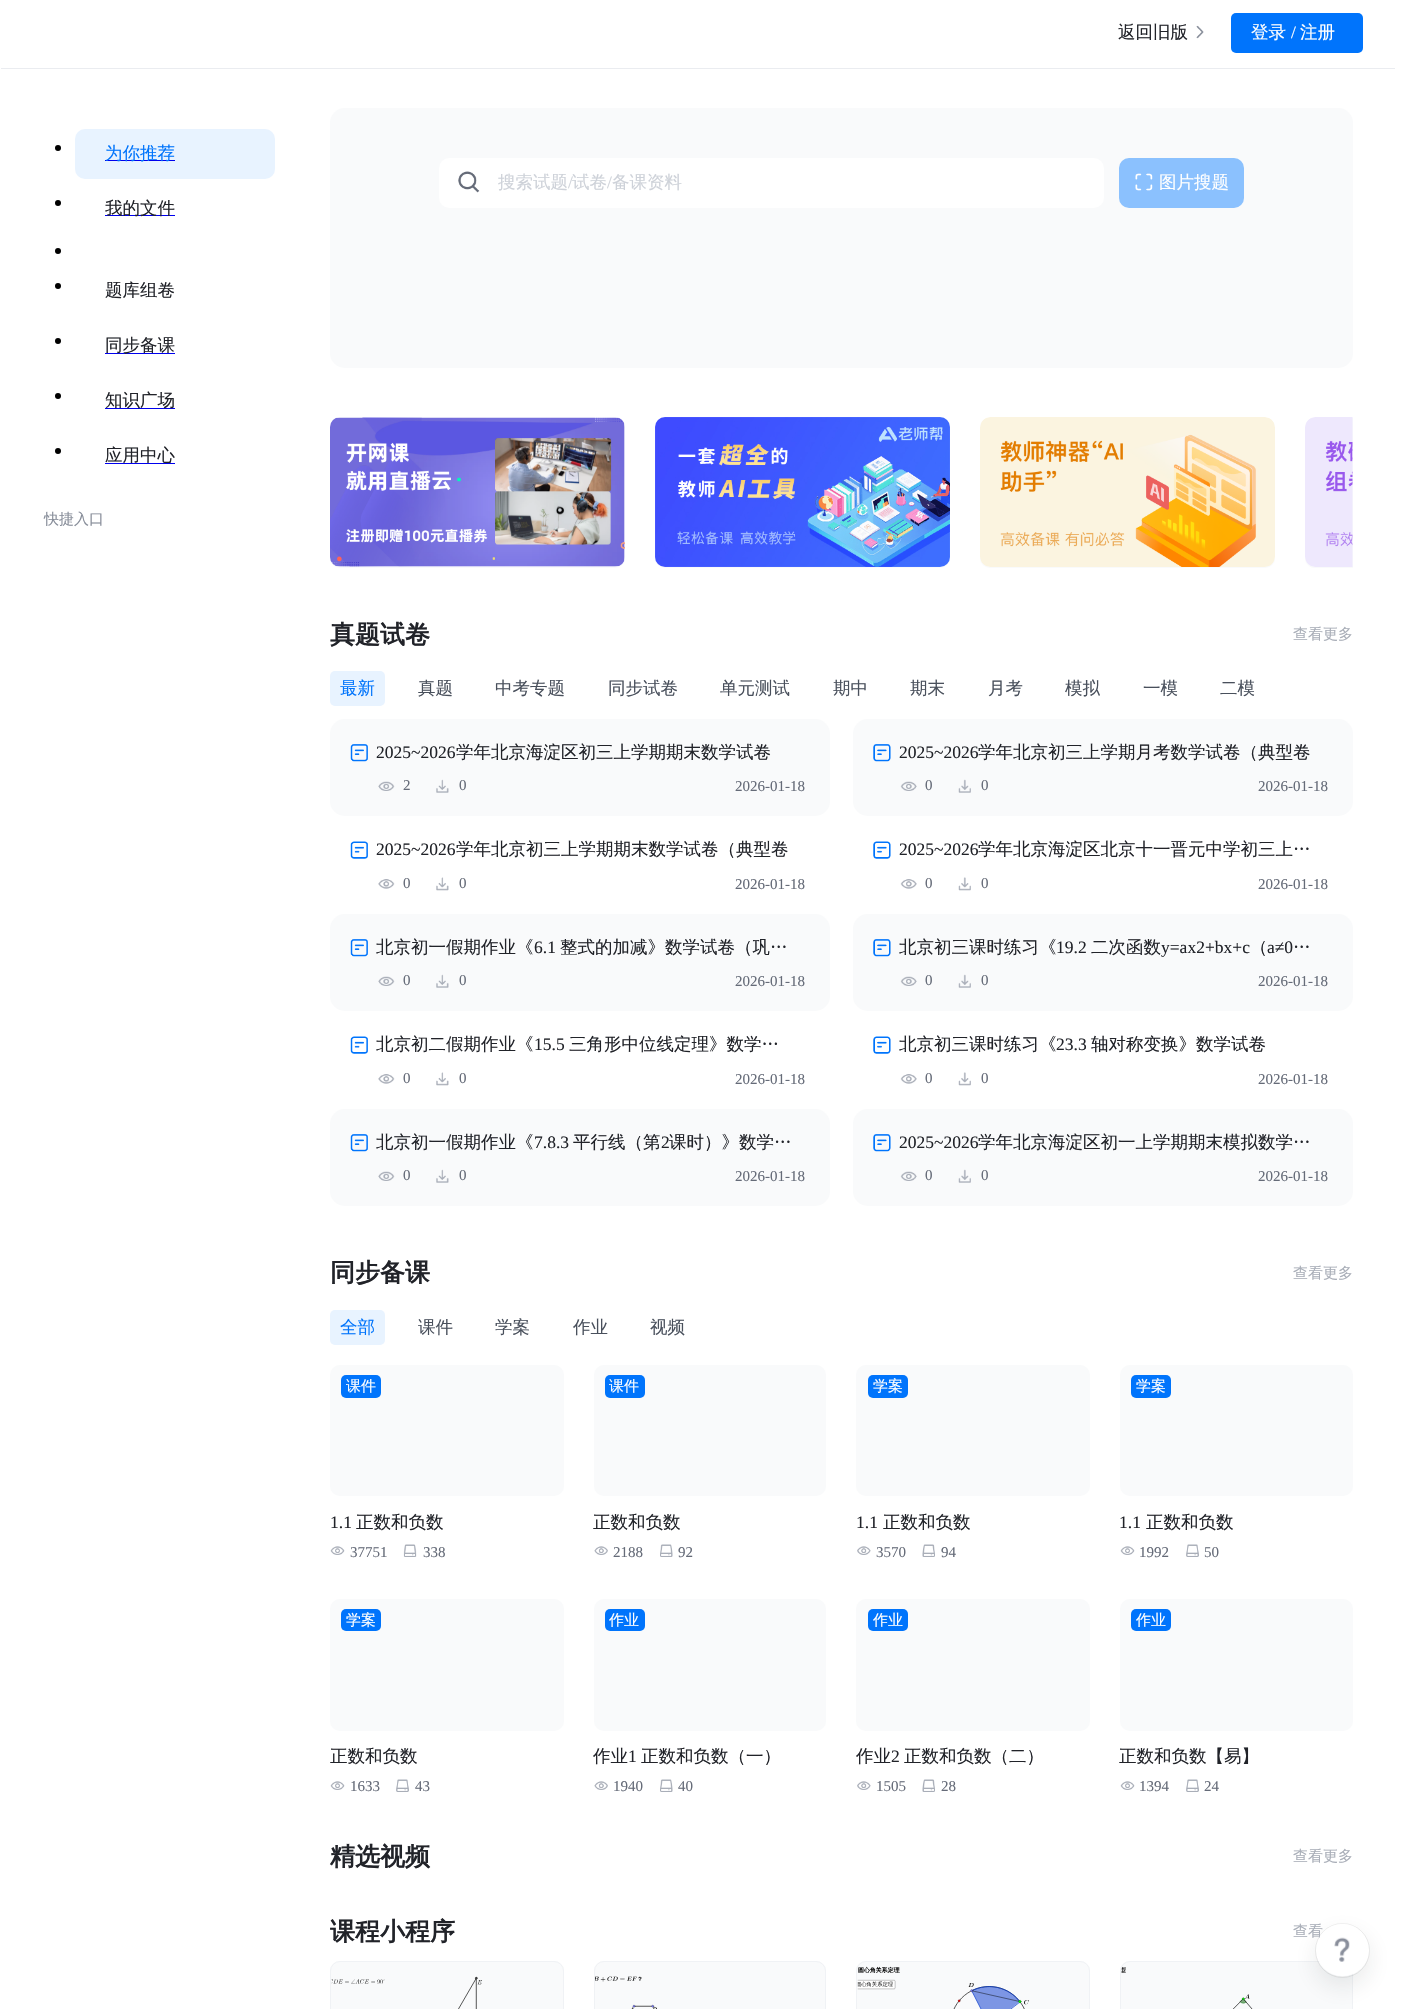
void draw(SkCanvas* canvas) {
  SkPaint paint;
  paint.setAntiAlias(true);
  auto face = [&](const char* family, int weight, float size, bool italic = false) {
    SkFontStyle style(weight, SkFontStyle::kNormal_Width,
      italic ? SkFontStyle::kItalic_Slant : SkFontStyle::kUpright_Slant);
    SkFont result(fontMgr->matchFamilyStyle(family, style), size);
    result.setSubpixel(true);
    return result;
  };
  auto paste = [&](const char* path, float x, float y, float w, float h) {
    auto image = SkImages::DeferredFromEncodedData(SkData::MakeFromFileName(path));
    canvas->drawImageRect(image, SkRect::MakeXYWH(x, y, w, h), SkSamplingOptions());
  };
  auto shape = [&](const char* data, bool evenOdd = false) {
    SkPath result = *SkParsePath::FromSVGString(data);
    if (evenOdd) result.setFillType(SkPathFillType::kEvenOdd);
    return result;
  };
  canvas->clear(0xffffffff);
  paint.setColor(0xffeaecf0);
  canvas->drawRect(SkRect::MakeXYWH(1, 68, 1394, 1), paint);
  paste("img/1.png", 1196, 25, 8, 14);
  paint.setColor(0xff0074fc);
  canvas->drawRoundRect(SkRect::MakeXYWH(1231, 13, 132, 40), 5, 5, paint);
  paint.setColor(0xff000000);
  canvas->drawCircle(58, 148, 3, paint);
  paint.setColor(0xffe8f3ff);
  canvas->drawRoundRect(SkRect::MakeXYWH(75, 129, 200, 50), 10, 10, paint);
  paint.setColor(0xff0000ee);
  canvas->drawRect(SkRect::MakeXYWH(105, 160, 70, 1), paint);
  paint.setColor(0xff000000);
  canvas->drawCircle(58, 203, 3, paint);
  paint.setColor(0xff0000ee);
  canvas->drawRect(SkRect::MakeXYWH(105, 215, 70, 1), paint);
  paint.setColor(0xff000000);
  canvas->drawCircle(58, 251, 3, paint);
  canvas->drawCircle(58, 286, 3, paint);
  canvas->drawCircle(58, 341, 3, paint);
  paint.setColor(0xff0000ee);
  canvas->drawRect(SkRect::MakeXYWH(105, 353, 70, 1), paint);
  paint.setColor(0xff000000);
  canvas->drawCircle(58, 396, 3, paint);
  paint.setColor(0xff0000ee);
  canvas->drawRect(SkRect::MakeXYWH(105, 408, 70, 1), paint);
  paint.setColor(0xff000000);
  canvas->drawCircle(58, 451, 3, paint);
  paint.setColor(0xff0000ee);
  canvas->drawRect(SkRect::MakeXYWH(105, 463, 70, 1), paint);
  paint.setColor(0xfff9fafb);
  canvas->drawRoundRect(SkRect::MakeXYWH(330, 108, 1023, 260), 15, 15, paint);
  paint.setColor(0xffffffff);
  canvas->drawRoundRect(SkRect::MakeXYWH(439, 158, 665, 50), 10, 10, paint);
  paste("img/2.png", 458, 171, 22, 22);
  paint.setColor(0xff8bc1fe);
  canvas->drawRoundRect(SkRect::MakeXYWH(1119, 158, 125, 50), 10, 10, paint);
  paste("img/3.png", 1135, 173, 18, 18);
  paint.setColor(0xfff9fafb);
  canvas->drawRoundRect(SkRect::MakeXYWH(330, 418, 295, 150), 10, 10, paint);
  paste("img/4.png", 330, 417, 295, 150);
  canvas->drawRoundRect(SkRect::MakeXYWH(655, 418, 295, 150), 10, 10, paint);
  paste("img/5.png", 655, 417, 295, 150);
  canvas->drawRoundRect(SkRect::MakeXYWH(980, 418, 295, 150), 10, 10, paint);
  paste("img/6.png", 980, 417, 295, 150);
  canvas->drawPath(shape("M1315 418H1353V568H1315C1309.5 568 1305 563.5 1305 558V428C1305 422.5 1309.5 418 1315 418Z"), paint);
  paste("img/7.png", 1305, 417, 48, 150);
  paint.setColor(0xffe8f3ff);
  canvas->drawRoundRect(SkRect::MakeXYWH(330, 671, 55, 35), 5, 5, paint);
  paint.setColor(0xfff9fafb);
  canvas->drawRoundRect(SkRect::MakeXYWH(330, 719, 500, 97), 15, 15, paint);
  paste("img/8.png", 350, 744, 18, 18);
  paste("img/9.png", 378, 781, 17, 10);
  paste("img/10.png", 436, 779, 13, 14);
  canvas->drawRoundRect(SkRect::MakeXYWH(853, 719, 500, 97), 15, 15, paint);
  paste("img/11.png", 873, 744, 18, 18);
  paste("img/12.png", 900, 781, 17, 10);
  paste("img/13.png", 958, 779, 13, 14);
  paste("img/14.png", 350, 841, 18, 18);
  paste("img/15.png", 378, 879, 17, 10);
  paste("img/16.png", 436, 877, 13, 14);
  paste("img/17.png", 873, 841, 18, 18);
  paste("img/18.png", 900, 879, 17, 10);
  paste("img/19.png", 958, 877, 13, 14);
  canvas->drawRoundRect(SkRect::MakeXYWH(330, 914, 500, 97), 15, 15, paint);
  paste("img/8.png", 350, 939, 18, 18);
  paste("img/9.png", 378, 976, 17, 10);
  paste("img/10.png", 436, 974, 13, 14);
  canvas->drawRoundRect(SkRect::MakeXYWH(853, 914, 500, 97), 15, 15, paint);
  paste("img/11.png", 873, 939, 18, 18);
  paste("img/12.png", 900, 976, 17, 10);
  paste("img/13.png", 958, 974, 13, 14);
  paste("img/14.png", 350, 1036, 18, 18);
  paste("img/15.png", 378, 1074, 17, 10);
  paste("img/16.png", 436, 1072, 13, 14);
  paste("img/17.png", 873, 1036, 18, 18);
  paste("img/18.png", 900, 1074, 17, 10);
  paste("img/19.png", 958, 1072, 13, 14);
  canvas->drawRoundRect(SkRect::MakeXYWH(330, 1109, 500, 97), 15, 15, paint);
  paste("img/8.png", 350, 1134, 18, 18);
  paste("img/9.png", 378, 1171, 17, 10);
  paste("img/10.png", 436, 1169, 13, 14);
  canvas->drawRoundRect(SkRect::MakeXYWH(853, 1109, 500, 97), 15, 15, paint);
  paste("img/11.png", 873, 1134, 18, 18);
  paste("img/12.png", 900, 1171, 17, 10);
  paste("img/13.png", 958, 1169, 13, 14);
  paint.setColor(0xffe8f3ff);
  canvas->drawRoundRect(SkRect::MakeXYWH(330, 1310, 55, 35), 5, 5, paint);
  paint.setColor(0xfff9fafb);
  canvas->drawRoundRect(SkRect::MakeXYWH(330, 1365, 234, 131), 10, 10, paint);
  paint.setColor(0xff0074fc);
  canvas->drawRoundRect(SkRect::MakeXYWH(341, 1375, 40, 23), 5, 5, paint);
  paste("img/20.png", 330, 1546, 15, 9);
  paste("img/21.png", 403, 1544, 14, 13);
  paint.setColor(0xfff9fafb);
  canvas->drawRoundRect(SkRect::MakeXYWH(594, 1365, 232, 131), 10, 10, paint);
  paint.setColor(0xff0074fc);
  canvas->drawRoundRect(SkRect::MakeXYWH(605, 1375, 40, 23), 5, 5, paint);
  paste("img/22.png", 594, 1546, 14, 9);
  paste("img/23.png", 660, 1544, 13, 13);
  paint.setColor(0xfff9fafb);
  canvas->drawRoundRect(SkRect::MakeXYWH(856, 1365, 234, 131), 10, 10, paint);
  paint.setColor(0xff0074fc);
  canvas->drawRoundRect(SkRect::MakeXYWH(868, 1375, 40, 23), 5, 5, paint);
  paste("img/24.png", 857, 1546, 14, 9);
  paste("img/25.png", 922, 1544, 13, 13);
  paint.setColor(0xfff9fafb);
  canvas->drawRoundRect(SkRect::MakeXYWH(1120, 1365, 233, 131), 10, 10, paint);
  paint.setColor(0xff0074fc);
  canvas->drawRoundRect(SkRect::MakeXYWH(1131, 1375, 40, 23), 5, 5, paint);
  paste("img/26.png", 1120, 1546, 15, 9);
  paste("img/27.png", 1186, 1544, 13, 13);
  paint.setColor(0xfff9fafb);
  canvas->drawRoundRect(SkRect::MakeXYWH(330, 1599, 234, 132), 10, 10, paint);
  paint.setColor(0xff0074fc);
  canvas->drawRoundRect(SkRect::MakeXYWH(341, 1609, 40, 22), 5, 5, paint);
  paste("img/20.png", 330, 1781, 15, 9);
  paste("img/27.png", 396, 1779, 13, 13);
  paint.setColor(0xfff9fafb);
  canvas->drawRoundRect(SkRect::MakeXYWH(594, 1599, 232, 132), 10, 10, paint);
  paint.setColor(0xff0074fc);
  canvas->drawRoundRect(SkRect::MakeXYWH(605, 1609, 40, 22), 5, 5, paint);
  paste("img/22.png", 594, 1781, 14, 9);
  paste("img/23.png", 660, 1779, 13, 13);
  paint.setColor(0xfff9fafb);
  canvas->drawRoundRect(SkRect::MakeXYWH(856, 1599, 234, 132), 10, 10, paint);
  paint.setColor(0xff0074fc);
  canvas->drawRoundRect(SkRect::MakeXYWH(868, 1609, 40, 22), 5, 5, paint);
  paste("img/24.png", 857, 1781, 14, 9);
  paste("img/25.png", 922, 1779, 13, 13);
  paint.setColor(0xfff9fafb);
  canvas->drawRoundRect(SkRect::MakeXYWH(1120, 1599, 233, 132), 10, 10, paint);
  paint.setColor(0xff0074fc);
  canvas->drawRoundRect(SkRect::MakeXYWH(1131, 1609, 40, 22), 5, 5, paint);
  paste("img/26.png", 1120, 1781, 15, 9);
  paste("img/27.png", 1186, 1779, 13, 13);
  paint.setColor(0xfff9fafb);
  canvas->drawPath(shape("M340 1961H554C559.5 1961 564 1965.5 564 1971V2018H330V1971C330 1965.5 334.5 1961 340 1961Z"), paint);
  paint.setStroke(true);
  paint.setStrokeWidth(1);
  paint.setColor(0xfff0f2f5);
  canvas->drawRoundRect(SkRect::MakeXYWH(330.5f, 1961.5f, 233, 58), 9.5f, 9.5f, paint);
  paste("img/28.png", 331, 1976, 151, 33);
  paint.setStroke(false);
  paint.setColor(0xfff9fafb);
  canvas->drawPath(shape("M604 1961H816C821.5 1961 826 1965.5 826 1971V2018H594V1971C594 1965.5 598.5 1961 604 1961Z"), paint);
  paint.setStroke(true);
  paint.setColor(0xfff0f2f5);
  canvas->drawRoundRect(SkRect::MakeXYWH(594.5f, 1961.5f, 231, 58), 9.5f, 9.5f, paint);
  paste("img/29.png", 595, 1976, 62, 33);
  paint.setStroke(false);
  paint.setColor(0xfff9fafb);
  canvas->drawPath(shape("M866 1961H1080C1085.5 1961 1090 1965.5 1090 1971V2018H856V1971C856 1965.5 860.5 1961 866 1961Z"), paint);
  paint.setStroke(true);
  paint.setColor(0xfff0f2f5);
  canvas->drawRoundRect(SkRect::MakeXYWH(856.5f, 1961.5f, 233, 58), 9.5f, 9.5f, paint);
  paste("img/30.png", 857, 1966, 172, 43);
  paint.setStroke(false);
  paint.setColor(0xfff9fafb);
  canvas->drawPath(shape("M1130 1961H1343C1348.5 1961 1353 1965.5 1353 1971V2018H1120V1971C1120 1965.5 1124.5 1961 1130 1961Z"), paint);
  paint.setStroke(true);
  paint.setColor(0xfff0f2f5);
  canvas->drawRoundRect(SkRect::MakeXYWH(1120.5f, 1961.5f, 232, 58), 9.5f, 9.5f, paint);
  paste("img/31.png", 1121, 1967, 132, 42);
  paint.setColor(0x14202328);
  canvas->drawCircle(1342.5f, 1950.5f, 27, paint);
  canvas->save();
  canvas->clipPath(shape("M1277 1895H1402V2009H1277ZM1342 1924H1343C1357.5 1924 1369 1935.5 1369 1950C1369 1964.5 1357.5 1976 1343 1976H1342C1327.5 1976 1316 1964.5 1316 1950C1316 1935.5 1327.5 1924 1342 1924Z", true), true);
  paint.setStroke(false);
  paint.setColor(0x1a212329);
  paint.setMaskFilter(SkMaskFilter::MakeBlur(kNormal_SkBlurStyle, 12.5f));
  canvas->drawRoundRect(SkRect::MakeXYWH(1316, 1934, 53, 52), 26, 26, paint);
  paint.setMaskFilter(nullptr);
  canvas->restore();
  auto f0 = face("WenQuanYi Zen Hei", 500, 17.5f);
  paint.setColor(0xff212329);
  canvas->drawString("返回旧版", 1118, 38, f0, paint);
  paint.setColor(0xffffffff);
  canvas->drawString("登录", 1251, 38, f0, paint);
  auto f1 = face("Liberation Serif", 400, 17.5f);
  canvas->drawString("/", 1291, 38, f1, paint);
  canvas->drawString("注册", 1300, 38, f0, paint);
  paint.setColor(0xff0074fc);
  canvas->drawString("为你推荐", 105, 159, f0, paint);
  paint.setColor(0xff212329);
  {
    const struct { const char* s; float x, y; } items[] = {
      {"我的文件", 105, 214},
      {"题库组卷", 105, 296},
      {"同步备课", 105, 351},
      {"知识广场", 105, 406},
      {"应用中心", 105, 461},
    };
    for (auto [s, x, y] : items) {
      canvas->drawString(s, x, y, f0, paint);
    }
  }
  auto f2 = face("WenQuanYi Zen Hei", 500, 15);
  paint.setColor(0xff878d99);
  canvas->drawString("快捷入口", 44, 524, f2, paint);
  paint.setColor(0xffced2d9);
  canvas->drawString("搜索试题", 498, 188, f0, paint);
  canvas->drawString("/", 568, 188, f1, paint);
  canvas->drawString("试卷", 572, 188, f0, paint);
  canvas->drawString("/", 607, 188, f1, paint);
  canvas->drawString("备课资料", 612, 188, f0, paint);
  paint.setColor(0xffffffff);
  canvas->drawString("图片搜题", 1159, 188, f0, paint);
  auto f3 = face("WenQuanYi Zen Hei", 700, 25);
  paint.setColor(0xff212329);
  canvas->drawString("真题试卷", 330, 643, f3, paint);
  paint.setColor(0xffa9aeb8);
  canvas->drawString("查看更多", 1293, 639, f2, paint);
  paint.setColor(0xff0074fc);
  canvas->drawString("最新", 340, 694, f0, paint);
  paint.setColor(0xff49505c);
  {
    const struct { const char* s; float x, y; } items[] = {
      {"真题", 418, 694},
      {"中考专题", 495, 694},
      {"同步试卷", 608, 694},
      {"单元测试", 720, 694},
      {"期中", 833, 694},
      {"期末", 910, 694},
      {"月考", 988, 694},
      {"模拟", 1065, 694},
      {"一模", 1143, 694},
      {"二模", 1220, 694},
    };
    for (auto [s, x, y] : items) {
      canvas->drawString(s, x, y, f0, paint);
    }
  }
  paint.setColor(0xff212329);
  canvas->drawString("2025~2026", 376, 758, f1, paint);
  canvas->drawString("学年北京海淀区初三上学期期末数学试卷", 456, 758, f0, paint);
  auto f4 = face("Liberation Serif", 400, 15);
  paint.setColor(0xff656b78);
  {
    const struct { const char* s; float x, y; } items[] = {
      {"2", 403, 790},
      {"0", 459, 790},
      {"2026-01-18", 735, 791},
    };
    for (auto [s, x, y] : items) {
      canvas->drawString(s, x, y, f4, paint);
    }
  }
  paint.setColor(0xff212329);
  canvas->drawString("2025~2026", 899, 758, f1, paint);
  canvas->drawString("学年北京初三上学期月考数学试卷（典型卷", 978, 758, f0, paint);
  paint.setColor(0xff656b78);
  {
    const struct { const char* s; float x, y; } items[] = {
      {"0", 925, 790},
      {"0", 981, 790},
      {"2026-01-18", 1258, 791},
    };
    for (auto [s, x, y] : items) {
      canvas->drawString(s, x, y, f4, paint);
    }
  }
  paint.setColor(0xff212329);
  canvas->drawString("2025~2026", 376, 855, f1, paint);
  canvas->drawString("学年北京初三上学期期末数学试卷（典型卷", 456, 855, f0, paint);
  paint.setColor(0xff656b78);
  {
    const struct { const char* s; float x, y; } items[] = {
      {"0", 403, 888},
      {"0", 459, 888},
      {"2026-01-18", 735, 889},
    };
    for (auto [s, x, y] : items) {
      canvas->drawString(s, x, y, f4, paint);
    }
  }
  paint.setColor(0xff212329);
  canvas->drawString("2025~2026", 899, 855, f1, paint);
  canvas->drawString("学年北京海淀区北京十一晋元中学初三上…", 978, 855, f0, paint);
  paint.setColor(0xff656b78);
  {
    const struct { const char* s; float x, y; } items[] = {
      {"0", 925, 888},
      {"0", 981, 888},
      {"2026-01-18", 1258, 889},
    };
    for (auto [s, x, y] : items) {
      canvas->drawString(s, x, y, f4, paint);
    }
  }
  paint.setColor(0xff212329);
  canvas->drawString("北京初一假期作业《", 376, 953, f0, paint);
  canvas->drawString("6.1", 534, 953, f1, paint);
  canvas->drawString("整式的加减》数学试卷（巩…", 560, 953, f0, paint);
  paint.setColor(0xff656b78);
  {
    const struct { const char* s; float x, y; } items[] = {
      {"0", 403, 985},
      {"0", 459, 985},
      {"2026-01-18", 735, 986},
    };
    for (auto [s, x, y] : items) {
      canvas->drawString(s, x, y, f4, paint);
    }
  }
  paint.setColor(0xff212329);
  canvas->drawString("北京初三课时练习《", 899, 953, f0, paint);
  canvas->drawString("19.2", 1056, 953, f1, paint);
  canvas->drawString("二次函数", 1091, 953, f0, paint);
  canvas->drawString("y=ax2+bx+c", 1161, 953, f1, paint);
  canvas->drawString("（", 1250, 953, f0, paint);
  canvas->drawString("a≠0", 1267, 953, f1, paint);
  canvas->drawString("…", 1293, 953, f0, paint);
  paint.setColor(0xff656b78);
  {
    const struct { const char* s; float x, y; } items[] = {
      {"0", 925, 985},
      {"0", 981, 985},
      {"2026-01-18", 1258, 986},
    };
    for (auto [s, x, y] : items) {
      canvas->drawString(s, x, y, f4, paint);
    }
  }
  paint.setColor(0xff212329);
  canvas->drawString("北京初二假期作业《", 376, 1050, f0, paint);
  canvas->drawString("15.5", 534, 1050, f1, paint);
  canvas->drawString("三角形中位线定理》数学…", 569, 1050, f0, paint);
  paint.setColor(0xff656b78);
  {
    const struct { const char* s; float x, y; } items[] = {
      {"0", 403, 1083},
      {"0", 459, 1083},
      {"2026-01-18", 735, 1084},
    };
    for (auto [s, x, y] : items) {
      canvas->drawString(s, x, y, f4, paint);
    }
  }
  paint.setColor(0xff212329);
  canvas->drawString("北京初三课时练习《", 899, 1050, f0, paint);
  canvas->drawString("23.3", 1056, 1050, f1, paint);
  canvas->drawString("轴对称变换》数学试卷", 1091, 1050, f0, paint);
  paint.setColor(0xff656b78);
  {
    const struct { const char* s; float x, y; } items[] = {
      {"0", 925, 1083},
      {"0", 981, 1083},
      {"2026-01-18", 1258, 1084},
    };
    for (auto [s, x, y] : items) {
      canvas->drawString(s, x, y, f4, paint);
    }
  }
  paint.setColor(0xff212329);
  canvas->drawString("北京初一假期作业《", 376, 1148, f0, paint);
  canvas->drawString("7.8.3", 534, 1148, f1, paint);
  canvas->drawString("平行线（第", 573, 1148, f0, paint);
  canvas->drawString("2", 661, 1148, f1, paint);
  canvas->drawString("课时）》数学…", 669, 1148, f0, paint);
  paint.setColor(0xff656b78);
  {
    const struct { const char* s; float x, y; } items[] = {
      {"0", 403, 1180},
      {"0", 459, 1180},
      {"2026-01-18", 735, 1181},
    };
    for (auto [s, x, y] : items) {
      canvas->drawString(s, x, y, f4, paint);
    }
  }
  paint.setColor(0xff212329);
  canvas->drawString("2025~2026", 899, 1148, f1, paint);
  canvas->drawString("学年北京海淀区初一上学期期末模拟数学…", 978, 1148, f0, paint);
  paint.setColor(0xff656b78);
  {
    const struct { const char* s; float x, y; } items[] = {
      {"0", 925, 1180},
      {"0", 981, 1180},
      {"2026-01-18", 1258, 1181},
    };
    for (auto [s, x, y] : items) {
      canvas->drawString(s, x, y, f4, paint);
    }
  }
  paint.setColor(0xff212329);
  canvas->drawString("同步备课", 330, 1281, f3, paint);
  paint.setColor(0xffa9aeb8);
  canvas->drawString("查看更多", 1293, 1278, f2, paint);
  paint.setColor(0xff0074fc);
  canvas->drawString("全部", 340, 1333, f0, paint);
  paint.setColor(0xff49505c);
  {
    const struct { const char* s; float x, y; } items[] = {
      {"课件", 418, 1333},
      {"学案", 495, 1333},
      {"作业", 573, 1333},
      {"视频", 650, 1333},
    };
    for (auto [s, x, y] : items) {
      canvas->drawString(s, x, y, f0, paint);
    }
  }
  paint.setColor(0xffffffff);
  canvas->drawString("课件", 346, 1391, f2, paint);
  paint.setColor(0xff212329);
  canvas->drawString("1.1", 330, 1528, f1, paint);
  canvas->drawString("正数和负数", 356, 1528, f0, paint);
  paint.setColor(0xff656b78);
  canvas->drawString("37751", 350, 1557, f4, paint);
  canvas->drawString("338", 423, 1557, f4, paint);
  paint.setColor(0xffffffff);
  canvas->drawString("课件", 609, 1391, f2, paint);
  paint.setColor(0xff212329);
  canvas->drawString("正数和负数", 593, 1528, f0, paint);
  paint.setColor(0xff656b78);
  canvas->drawString("2188", 613, 1557, f4, paint);
  canvas->drawString("92", 678, 1557, f4, paint);
  paint.setColor(0xffffffff);
  canvas->drawString("学案", 873, 1391, f2, paint);
  paint.setColor(0xff212329);
  canvas->drawString("1.1", 856, 1528, f1, paint);
  canvas->drawString("正数和负数", 883, 1528, f0, paint);
  paint.setColor(0xff656b78);
  canvas->drawString("3570", 876, 1557, f4, paint);
  canvas->drawString("94", 941, 1557, f4, paint);
  paint.setColor(0xffffffff);
  canvas->drawString("学案", 1136, 1391, f2, paint);
  paint.setColor(0xff212329);
  canvas->drawString("1.1", 1119, 1528, f1, paint);
  canvas->drawString("正数和负数", 1146, 1528, f0, paint);
  paint.setColor(0xff656b78);
  canvas->drawString("1992", 1139, 1557, f4, paint);
  canvas->drawString("50", 1204, 1557, f4, paint);
  paint.setColor(0xffffffff);
  canvas->drawString("学案", 346, 1625, f2, paint);
  paint.setColor(0xff212329);
  canvas->drawString("正数和负数", 330, 1762, f0, paint);
  paint.setColor(0xff656b78);
  canvas->drawString("1633", 350, 1791, f4, paint);
  canvas->drawString("43", 415, 1791, f4, paint);
  paint.setColor(0xffffffff);
  canvas->drawString("作业", 609, 1625, f2, paint);
  paint.setColor(0xff212329);
  canvas->drawString("作业", 593, 1762, f0, paint);
  canvas->drawString("1", 628, 1762, f1, paint);
  canvas->drawString("正数和负数（一）", 641, 1762, f0, paint);
  paint.setColor(0xff656b78);
  canvas->drawString("1940", 613, 1791, f4, paint);
  canvas->drawString("40", 678, 1791, f4, paint);
  paint.setColor(0xffffffff);
  canvas->drawString("作业", 873, 1625, f2, paint);
  paint.setColor(0xff212329);
  canvas->drawString("作业", 856, 1762, f0, paint);
  canvas->drawString("2", 891, 1762, f1, paint);
  canvas->drawString("正数和负数（二）", 904, 1762, f0, paint);
  paint.setColor(0xff656b78);
  canvas->drawString("1505", 876, 1791, f4, paint);
  canvas->drawString("28", 941, 1791, f4, paint);
  paint.setColor(0xffffffff);
  canvas->drawString("作业", 1136, 1625, f2, paint);
  paint.setColor(0xff212329);
  canvas->drawString("正数和负数【易】", 1119, 1762, f0, paint);
  paint.setColor(0xff656b78);
  canvas->drawString("1394", 1139, 1791, f4, paint);
  canvas->drawString("24", 1204, 1791, f4, paint);
  paint.setColor(0xff212329);
  canvas->drawString("精选视频", 330, 1865, f3, paint);
  paint.setColor(0xffa9aeb8);
  canvas->drawString("查看更多", 1293, 1861, f2, paint);
  paint.setColor(0xff212329);
  canvas->drawString("课程小程序", 330, 1940, f3, paint);
  paint.setColor(0xffa9aeb8);
  canvas->drawString("查看", 1293, 1936, f2, paint);
  paste("img/32.png", 1319, 1923, 39, 54);
}
